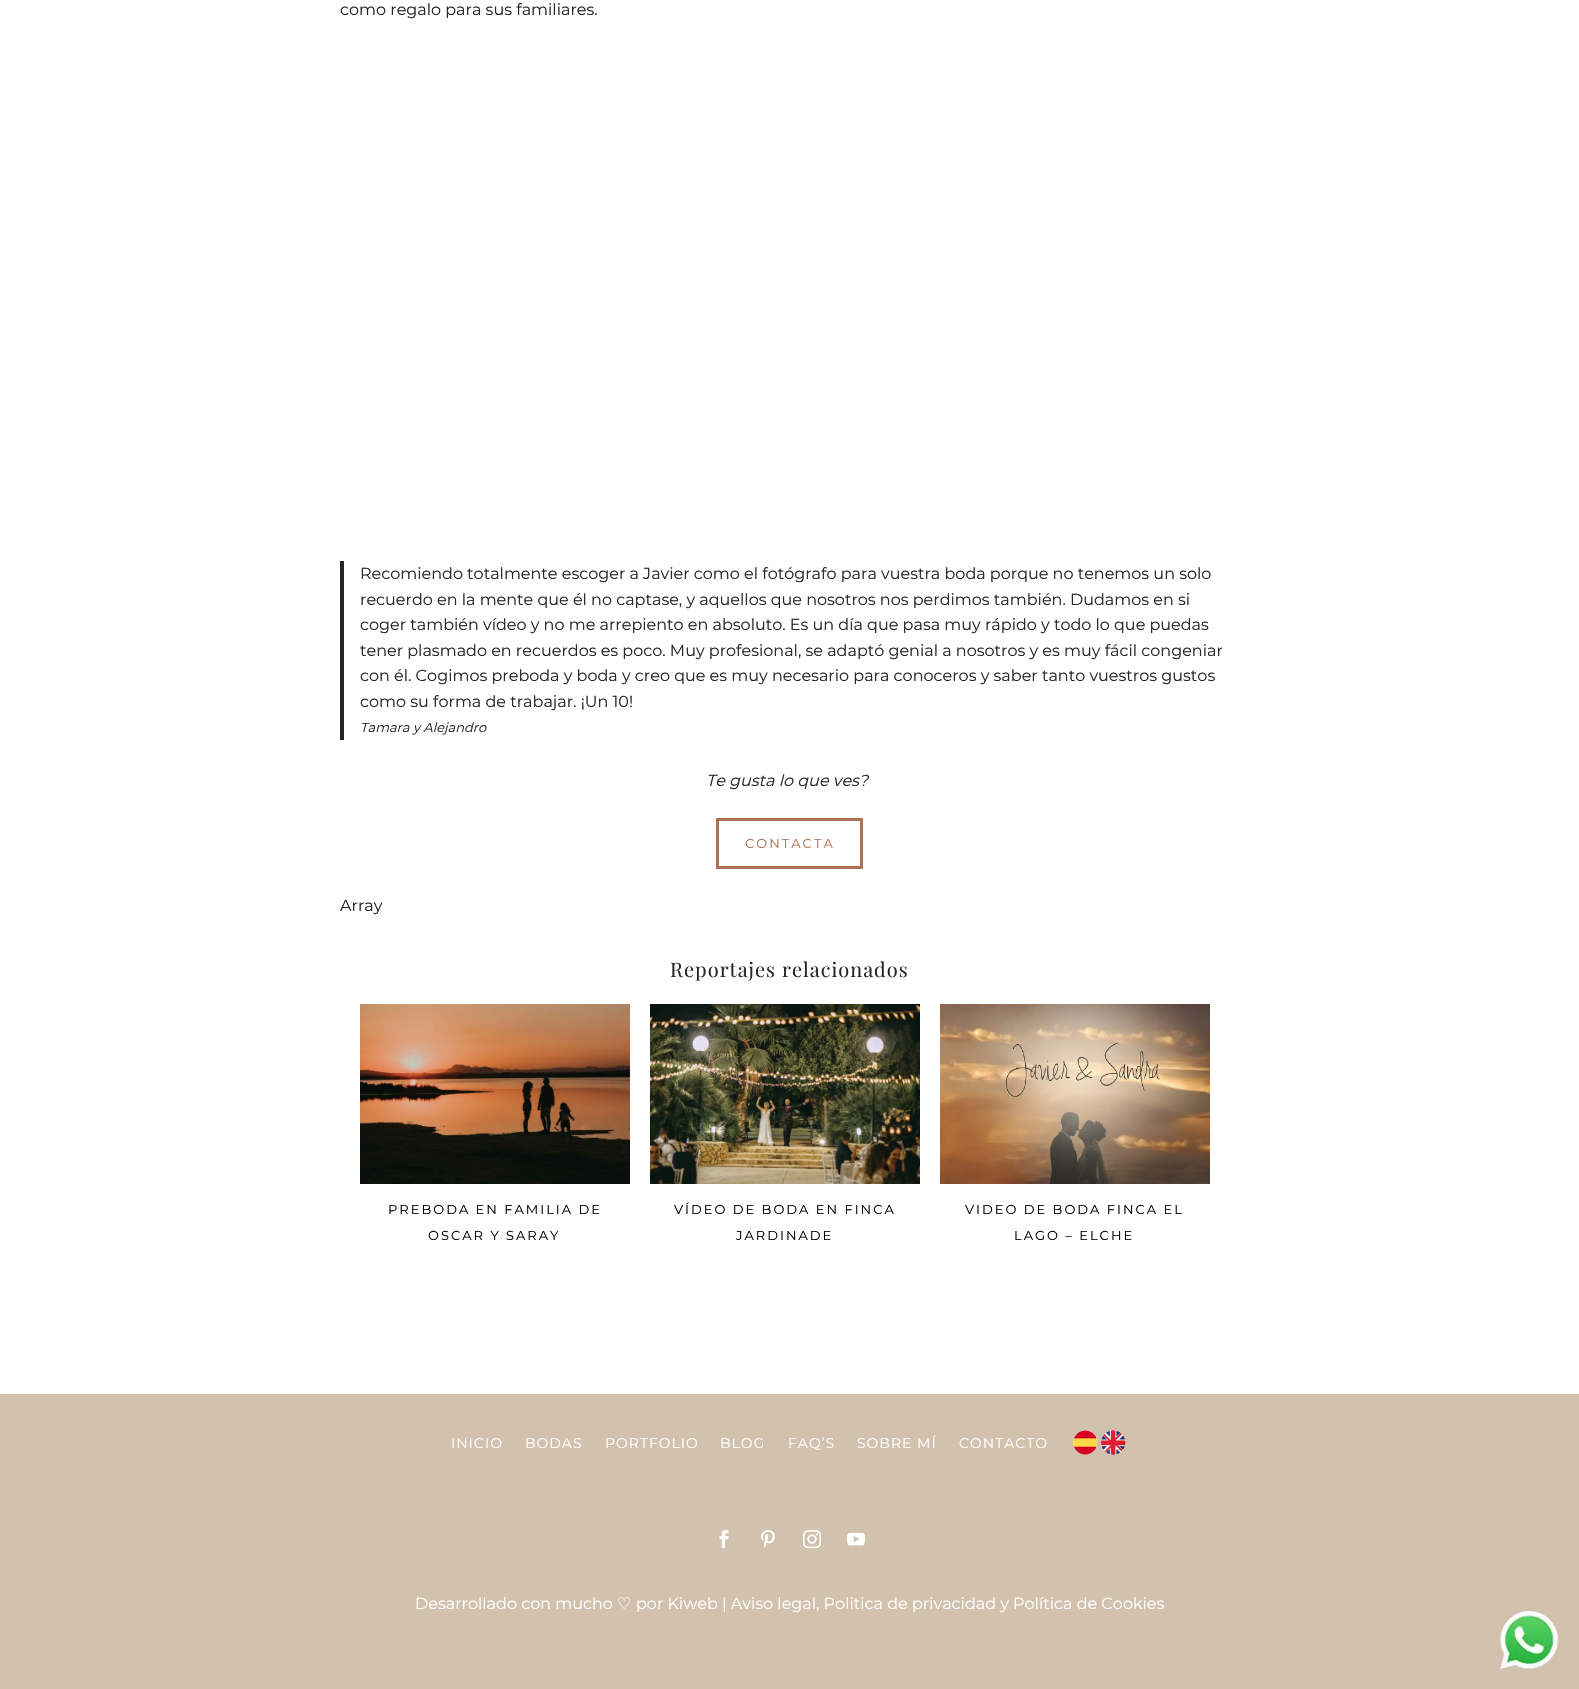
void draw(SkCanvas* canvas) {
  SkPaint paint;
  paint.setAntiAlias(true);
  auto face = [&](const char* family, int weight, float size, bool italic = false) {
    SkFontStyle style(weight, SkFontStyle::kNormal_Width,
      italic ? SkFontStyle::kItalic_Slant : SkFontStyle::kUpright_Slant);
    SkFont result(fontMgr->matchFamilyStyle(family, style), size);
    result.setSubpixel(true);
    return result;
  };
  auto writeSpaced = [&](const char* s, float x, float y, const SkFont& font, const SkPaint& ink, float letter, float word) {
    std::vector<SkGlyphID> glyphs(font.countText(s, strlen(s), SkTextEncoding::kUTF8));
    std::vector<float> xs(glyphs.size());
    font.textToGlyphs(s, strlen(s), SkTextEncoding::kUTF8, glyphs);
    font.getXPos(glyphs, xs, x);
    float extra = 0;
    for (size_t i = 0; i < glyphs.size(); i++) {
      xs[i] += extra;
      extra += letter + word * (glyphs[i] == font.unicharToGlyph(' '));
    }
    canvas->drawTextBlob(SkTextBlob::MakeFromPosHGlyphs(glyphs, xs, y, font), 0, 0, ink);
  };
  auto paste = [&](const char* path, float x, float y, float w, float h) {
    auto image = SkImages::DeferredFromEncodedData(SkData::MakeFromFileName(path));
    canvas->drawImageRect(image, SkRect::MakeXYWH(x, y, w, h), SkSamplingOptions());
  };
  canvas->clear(0xffffffff);
  paint.setColor(0xff262626);
  canvas->drawRect(SkRect::MakeXYWH(340, 561, 4, 179), paint);
  paint.setStroke(true);
  paint.setStrokeWidth(3);
  paint.setColor(0xffad7153);
  canvas->drawRect(SkRect::MakeXYWH(717.5f, 819.5f, 144, 48), paint);
  paste("img/1.png", 360, 1004, 270, 180);
  paste("img/2.png", 650, 1004, 270, 180);
  paste("img/3.png", 940, 1004, 270, 180);
  paint.setStroke(false);
  paint.setColor(0xffd1c1ad);
  canvas->drawRect(SkRect::MakeXYWH(0, 1394, 1579, 295), paint);
  paste("img/4.png", 1073, 1430, 53, 25);
  paste("img/5.png", 719, 1530, 10, 19);
  paste("img/6.png", 761, 1530, 14, 18);
  paste("img/7.png", 803, 1530, 18, 19);
  paste("img/8.png", 847, 1532, 18, 14);
  paste("img/9.png", 1499, 1610, 60, 60);
  auto f0 = face("Montserrat", 400, 16);
  paint.setColor(0xff262626);
  {
    const struct { const char* s; float x, y; } items[] = {
      {"como regalo para sus familiares.", 340, 15},
      {"Recomiendo totalmente escoger a Javier como el fotógrafo para vuestra boda porque no tenemos un solo", 360, 579},
      {"recuerdo en la mente que él no captase, y aquellos que nosotros nos perdimos también. Dudamos en si", 360, 605},
      {"coger también vídeo y no me arrepiento en absoluto. Es un día que pasa muy rápido y todo lo que puedas", 360, 630},
      {"tener plasmado en recuerdos es poco. Muy profesional, se adaptó genial a nosotros y es muy fácil congeniar", 360, 656},
      {"con él. Cogimos preboda y boda y creo que es muy necesario para conoceros y saber tanto vuestros gustos", 360, 681},
      {"como su forma de trabajar. ¡Un 10!", 360, 707},
    };
    for (auto [s, x, y] : items) {
      canvas->drawString(s, x, y, f0, paint);
    }
  }
  auto f1 = face("Montserrat", 400, 13, true);
  canvas->drawString("Tamara y Alejandro", 360, 732, f1, paint);
  auto f2 = face("Montserrat", 400, 16, true);
  canvas->drawString("Te gusta lo que ves?", 706, 786, f2, paint);
  auto f3 = face("Montserrat", 400, 13);
  paint.setColor(0xffad7153);
  writeSpaced("CONTACTA", 745, 848, f3, paint, 2, 0);
  paint.setColor(0xff262626);
  canvas->drawString("Array", 340, 911, f0, paint);
  auto f4 = face("Playfair Display", 400, 20);
  writeSpaced("Reportajes relacionados", 670, 977, f4, paint, 1, 0);
  paint.setColor(0xff000000);
  {
    const struct { const char* s; float x, y; } items[] = {
      {"PREBODA EN FAMILIA DE", 388, 1214},
      {"OSCAR Y SARAY", 428, 1240},
      {"VÍDEO DE BODA EN FINCA", 674, 1214},
      {"JARDINADE", 736, 1240},
      {"VIDEO DE BODA FINCA EL", 965, 1214},
      {"LAGO – ELCHE", 1014, 1240},
    };
    for (auto [s, x, y] : items) {
      writeSpaced(s, x, y, f3, paint, 2, 0);
    }
  }
  auto f5 = face("Montserrat", 400, 14);
  paint.setColor(0xffffffff);
  {
    const struct { const char* s; float x, y; } items[] = {
      {"INICIO", 451, 1448},
      {"BODAS", 525, 1448},
      {"PORTFOLIO", 605, 1448},
      {"BLOG", 720, 1448},
      {"FAQ’S", 788, 1448},
      {"SOBRE MÍ", 857, 1448},
      {"CONTACTO", 959, 1448},
    };
    for (auto [s, x, y] : items) {
      writeSpaced(s, x, y, f5, paint, 1, 0);
    }
  }
  canvas->drawString("Desarrollado con mucho", 415, 1609, f0, paint);
  auto f6 = face("DejaVu Sans", 400, 16);
  canvas->drawString("♡", 617, 1609, f6, paint);
  canvas->drawString("por Kiweb | Aviso legal, Politica de privacidad y Política de Cookies", 636, 1609, f0, paint);
}
